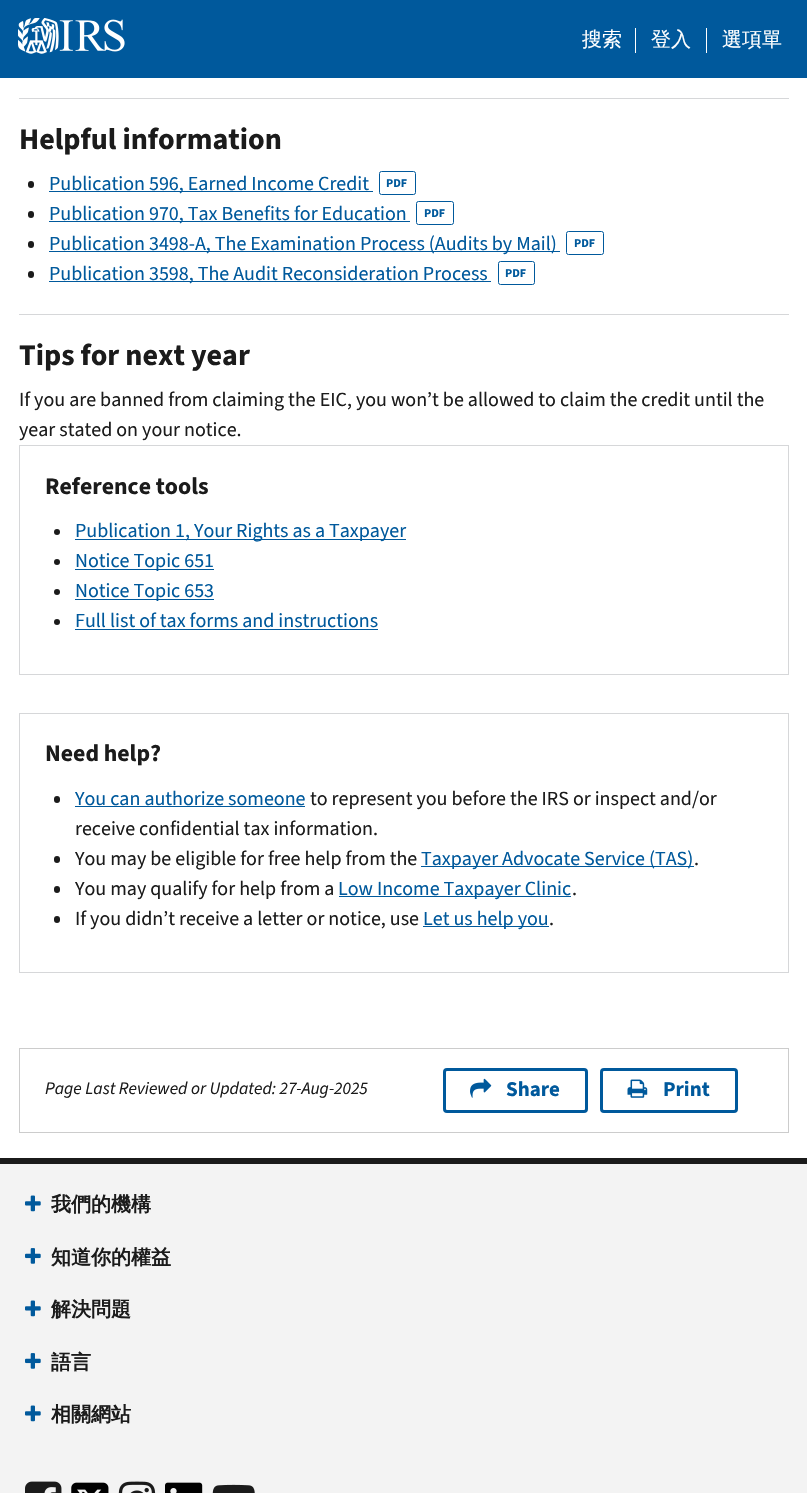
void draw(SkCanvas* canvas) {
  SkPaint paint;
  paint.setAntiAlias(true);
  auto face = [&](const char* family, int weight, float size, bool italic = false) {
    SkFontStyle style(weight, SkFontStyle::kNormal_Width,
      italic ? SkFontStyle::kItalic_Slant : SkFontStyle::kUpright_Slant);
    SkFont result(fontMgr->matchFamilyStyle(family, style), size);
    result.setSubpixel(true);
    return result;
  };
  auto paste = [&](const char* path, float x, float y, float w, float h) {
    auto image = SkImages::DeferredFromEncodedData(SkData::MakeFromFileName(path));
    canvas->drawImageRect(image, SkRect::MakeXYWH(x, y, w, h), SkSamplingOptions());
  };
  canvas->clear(0xffffffff);
  paint.setColor(0xff00599c);
  canvas->drawRect(SkRect::MakeXYWH(0, 0, 807, 78), paint);
  paste("img/1.png", 18, 18, 107, 36);
  {
    const struct { float x, y, w, h; SkColor color; } items[] = {
      {635, 28, 1, 25, 0xffffffff},
      {706, 28, 1, 25, 0xffffffff},
      {19, 98, 770, 1, 0xffd6d7d9},
    };
    for (auto [x, y, w, h, color] : items) {
      paint.setColor(color);
      canvas->drawRect(SkRect::MakeXYWH(x, y, w, h), paint);
    }
  }
  paint.setColor(0xff1b1b1b);
  canvas->drawRoundRect(SkRect::MakeXYWH(28, 181, 6, 7), 3, 3, paint);
  paint.setColor(0xff00599c);
  canvas->drawRect(SkRect::MakeXYWH(49, 191, 324, 1), paint);
  paint.setStroke(true);
  paint.setStrokeWidth(1);
  canvas->drawRoundRect(SkRect::MakeXYWH(379.5f, 171.5f, 36, 23), 2, 2, paint);
  paint.setStroke(false);
  paint.setColor(0xff1b1b1b);
  canvas->drawRoundRect(SkRect::MakeXYWH(28, 211, 6, 7), 3, 3, paint);
  paint.setColor(0xff00599c);
  canvas->drawRect(SkRect::MakeXYWH(49, 221, 361, 1), paint);
  paint.setStroke(true);
  canvas->drawRoundRect(SkRect::MakeXYWH(416.5f, 201.5f, 37, 23), 2, 2, paint);
  paint.setStroke(false);
  paint.setColor(0xff1b1b1b);
  canvas->drawRoundRect(SkRect::MakeXYWH(28, 241, 6, 7), 3, 3, paint);
  paint.setColor(0xff00599c);
  canvas->drawRect(SkRect::MakeXYWH(49, 251, 511, 1), paint);
  paint.setStroke(true);
  canvas->drawRoundRect(SkRect::MakeXYWH(566.5f, 231.5f, 37, 23), 2, 2, paint);
  paint.setStroke(false);
  paint.setColor(0xff1b1b1b);
  canvas->drawRoundRect(SkRect::MakeXYWH(28, 271, 6, 7), 3, 3, paint);
  paint.setColor(0xff00599c);
  canvas->drawRect(SkRect::MakeXYWH(49, 281, 442, 1), paint);
  paint.setStroke(true);
  canvas->drawRoundRect(SkRect::MakeXYWH(498.5f, 261.5f, 36, 23), 2, 2, paint);
  paint.setStroke(false);
  paint.setColor(0xffd6d7d9);
  canvas->drawRect(SkRect::MakeXYWH(19, 314, 770, 1), paint);
  paint.setStroke(true);
  canvas->drawRect(SkRect::MakeXYWH(19.5f, 445.5f, 769, 229), paint);
  paint.setStroke(false);
  paint.setColor(0xff1b1b1b);
  canvas->drawCircle(57, 532, 3, paint);
  paint.setColor(0xff00599c);
  canvas->drawRect(SkRect::MakeXYWH(75, 539, 331, 1), paint);
  paint.setColor(0xff1b1b1b);
  canvas->drawCircle(57, 562, 3, paint);
  paint.setColor(0xff00599c);
  canvas->drawRect(SkRect::MakeXYWH(75, 569, 139, 1), paint);
  paint.setColor(0xff1b1b1b);
  canvas->drawCircle(57, 592, 3, paint);
  paint.setColor(0xff00599c);
  canvas->drawRect(SkRect::MakeXYWH(75, 599, 139, 1), paint);
  paint.setColor(0xff1b1b1b);
  canvas->drawCircle(57, 622, 3, paint);
  paint.setColor(0xff00599c);
  canvas->drawRect(SkRect::MakeXYWH(75, 629, 303, 1), paint);
  paint.setStroke(true);
  paint.setColor(0xffd6d7d9);
  canvas->drawRect(SkRect::MakeXYWH(19.5f, 713.5f, 769, 259), paint);
  paint.setStroke(false);
  paint.setColor(0xff1b1b1b);
  canvas->drawRoundRect(SkRect::MakeXYWH(54, 796, 6, 7), 3, 3, paint);
  paint.setColor(0xff00599c);
  canvas->drawRect(SkRect::MakeXYWH(75, 806, 230, 1), paint);
  paint.setColor(0xff1b1b1b);
  canvas->drawRoundRect(SkRect::MakeXYWH(54, 856, 6, 7), 3, 3, paint);
  paint.setColor(0xff00599c);
  canvas->drawRect(SkRect::MakeXYWH(421, 866, 273, 1), paint);
  paint.setColor(0xff1b1b1b);
  canvas->drawRoundRect(SkRect::MakeXYWH(54, 886, 6, 7), 3, 3, paint);
  paint.setColor(0xff00599c);
  canvas->drawRect(SkRect::MakeXYWH(339, 896, 232, 1), paint);
  paint.setColor(0xff1b1b1b);
  canvas->drawRoundRect(SkRect::MakeXYWH(54, 916, 6, 7), 3, 3, paint);
  paint.setColor(0xff00599c);
  canvas->drawRect(SkRect::MakeXYWH(423, 926, 126, 1), paint);
  paint.setStroke(true);
  paint.setColor(0xffcccccc);
  canvas->drawRect(SkRect::MakeXYWH(19.5f, 1048.5f, 769, 84), paint);
  paint.setStrokeWidth(3);
  paint.setColor(0xff00599c);
  canvas->drawRoundRect(SkRect::MakeXYWH(444.5f, 1069.5f, 142, 42), 2.5f, 2.5f, paint);
  paste("img/2.png", 470, 1078, 22, 20);
  canvas->drawRoundRect(SkRect::MakeXYWH(601.5f, 1069.5f, 135, 42), 2.5f, 2.5f, paint);
  paste("img/3.png", 627, 1079, 21, 19);
  paint.setStroke(false);
  paint.setColor(0xfff3f3f3);
  canvas->drawRect(SkRect::MakeXYWH(0, 1164, 807, 329), paint);
  paint.setColor(0xff1b1b1b);
  canvas->drawRect(SkRect::MakeXYWH(0, 1158, 807, 6), paint);
  paste("img/4.png", 25, 1195, 16, 17);
  paste("img/5.png", 25, 1248, 16, 16);
  paste("img/4.png", 25, 1300, 16, 17);
  paste("img/5.png", 25, 1353, 16, 16);
  paste("img/4.png", 25, 1405, 16, 17);
  paste("img/6.png", 25, 1481, 37, 12);
  paste("img/7.png", 71, 1482, 38, 11);
  paste("img/8.png", 118, 1481, 38, 12);
  paste("img/9.png", 165, 1482, 38, 11);
  paste("img/10.png", 212, 1484, 43, 9);
  auto f0 = face("WenQuanYi Zen Hei", 500, 20);
  paint.setColor(0xffffffff);
  {
    const struct { const char* s; float x, y; } items[] = {
      {"搜索", 582, 46},
      {"登入", 651, 46},
      {"選項單", 722, 46},
    };
    for (auto [s, x, y] : items) {
      canvas->drawString(s, x, y, f0, paint);
    }
  }
  auto f1 = face("Source Sans 3", 700, 30);
  paint.setColor(0xff1b1b1b);
  canvas->drawString("Helpful information", 19, 149, f1, paint);
  auto f2 = face("Source Sans 3", 400, 20);
  paint.setColor(0xff00599c);
  canvas->drawString("Publication 596, Earned Income Credit", 49, 190, f2, paint);
  auto f3 = face("Source Sans 3", 700, 12);
  canvas->drawString("PDF", 386, 187, f3, paint);
  canvas->drawString("Publication 970, Tax Benefits for Education", 49, 220, f2, paint);
  canvas->drawString("PDF", 424, 217, f3, paint);
  canvas->drawString("Publication 3498-A, The Examination Process (Audits by Mail)", 49, 250, f2, paint);
  canvas->drawString("PDF", 574, 247, f3, paint);
  canvas->drawString("Publication 3598, The Audit Reconsideration Process", 49, 280, f2, paint);
  canvas->drawString("PDF", 505, 277, f3, paint);
  paint.setColor(0xff1b1b1b);
  canvas->drawString("Tips for next year", 19, 365, f1, paint);
  canvas->drawString("If you are banned from claiming the EIC, you won’t be allowed to claim the credit until the", 19, 406, f2, paint);
  canvas->drawString("year stated on your notice.", 19, 436, f2, paint);
  auto f4 = face("Source Sans 3", 700, 23.75f);
  canvas->drawString("Reference tools", 45, 494, f4, paint);
  paint.setColor(0xff00599c);
  {
    const struct { const char* s; float x, y; } items[] = {
      {"Publication 1, Your Rights as a Taxpayer", 75, 537},
      {"Notice Topic 651", 75, 567},
      {"Notice Topic 653", 75, 597},
      {"Full list of tax forms and instructions", 75, 627},
    };
    for (auto [s, x, y] : items) {
      canvas->drawString(s, x, y, f2, paint);
    }
  }
  paint.setColor(0xff1b1b1b);
  canvas->drawString("Need help?", 45, 761, f4, paint);
  paint.setColor(0xff00599c);
  canvas->drawString("You can authorize someone", 75, 805, f2, paint);
  paint.setColor(0xff1b1b1b);
  {
    const struct { const char* s; float x, y; } items[] = {
      {"to represent you before the IRS or inspect and/or", 310, 805},
      {"receive confidential tax information.", 75, 835},
      {"You may be eligible for free help from the", 75, 865},
    };
    for (auto [s, x, y] : items) {
      canvas->drawString(s, x, y, f2, paint);
    }
  }
  paint.setColor(0xff00599c);
  canvas->drawString("Taxpayer Advocate Service (TAS)", 421, 865, f2, paint);
  paint.setColor(0xff1b1b1b);
  canvas->drawString(".", 694, 865, f2, paint);
  canvas->drawString("You may qualify for help from a", 75, 895, f2, paint);
  paint.setColor(0xff00599c);
  canvas->drawString("Low Income Taxpayer Clinic", 338, 895, f2, paint);
  paint.setColor(0xff1b1b1b);
  canvas->drawString(".", 572, 895, f2, paint);
  canvas->drawString("If you didn’t receive a letter or notice, use", 75, 925, f2, paint);
  paint.setColor(0xff00599c);
  canvas->drawString("Let us help you", 423, 925, f2, paint);
  paint.setColor(0xff1b1b1b);
  canvas->drawString(".", 549, 925, f2, paint);
  auto f5 = face("Source Sans 3", 400, 17.5f, true);
  canvas->drawString("Page Last Reviewed or Updated: 27-Aug-2025", 45, 1094, f5, paint);
  auto f6 = face("Source Sans 3", 700, 21);
  paint.setColor(0xff00599c);
  canvas->drawString("Share", 506, 1096, f6, paint);
  canvas->drawString("Print", 663, 1096, f6, paint);
  auto f7 = face("WenQuanYi Zen Hei", 700, 20);
  paint.setColor(0xff1b1b1b);
  {
    const struct { const char* s; float x, y; } items[] = {
      {"我們的機構", 51, 1211},
      {"知道你的權益", 51, 1264},
      {"解決問題", 51, 1316},
      {"語言", 51, 1369},
      {"相關網站", 51, 1421},
    };
    for (auto [s, x, y] : items) {
      canvas->drawString(s, x, y, f7, paint);
    }
  }
}
